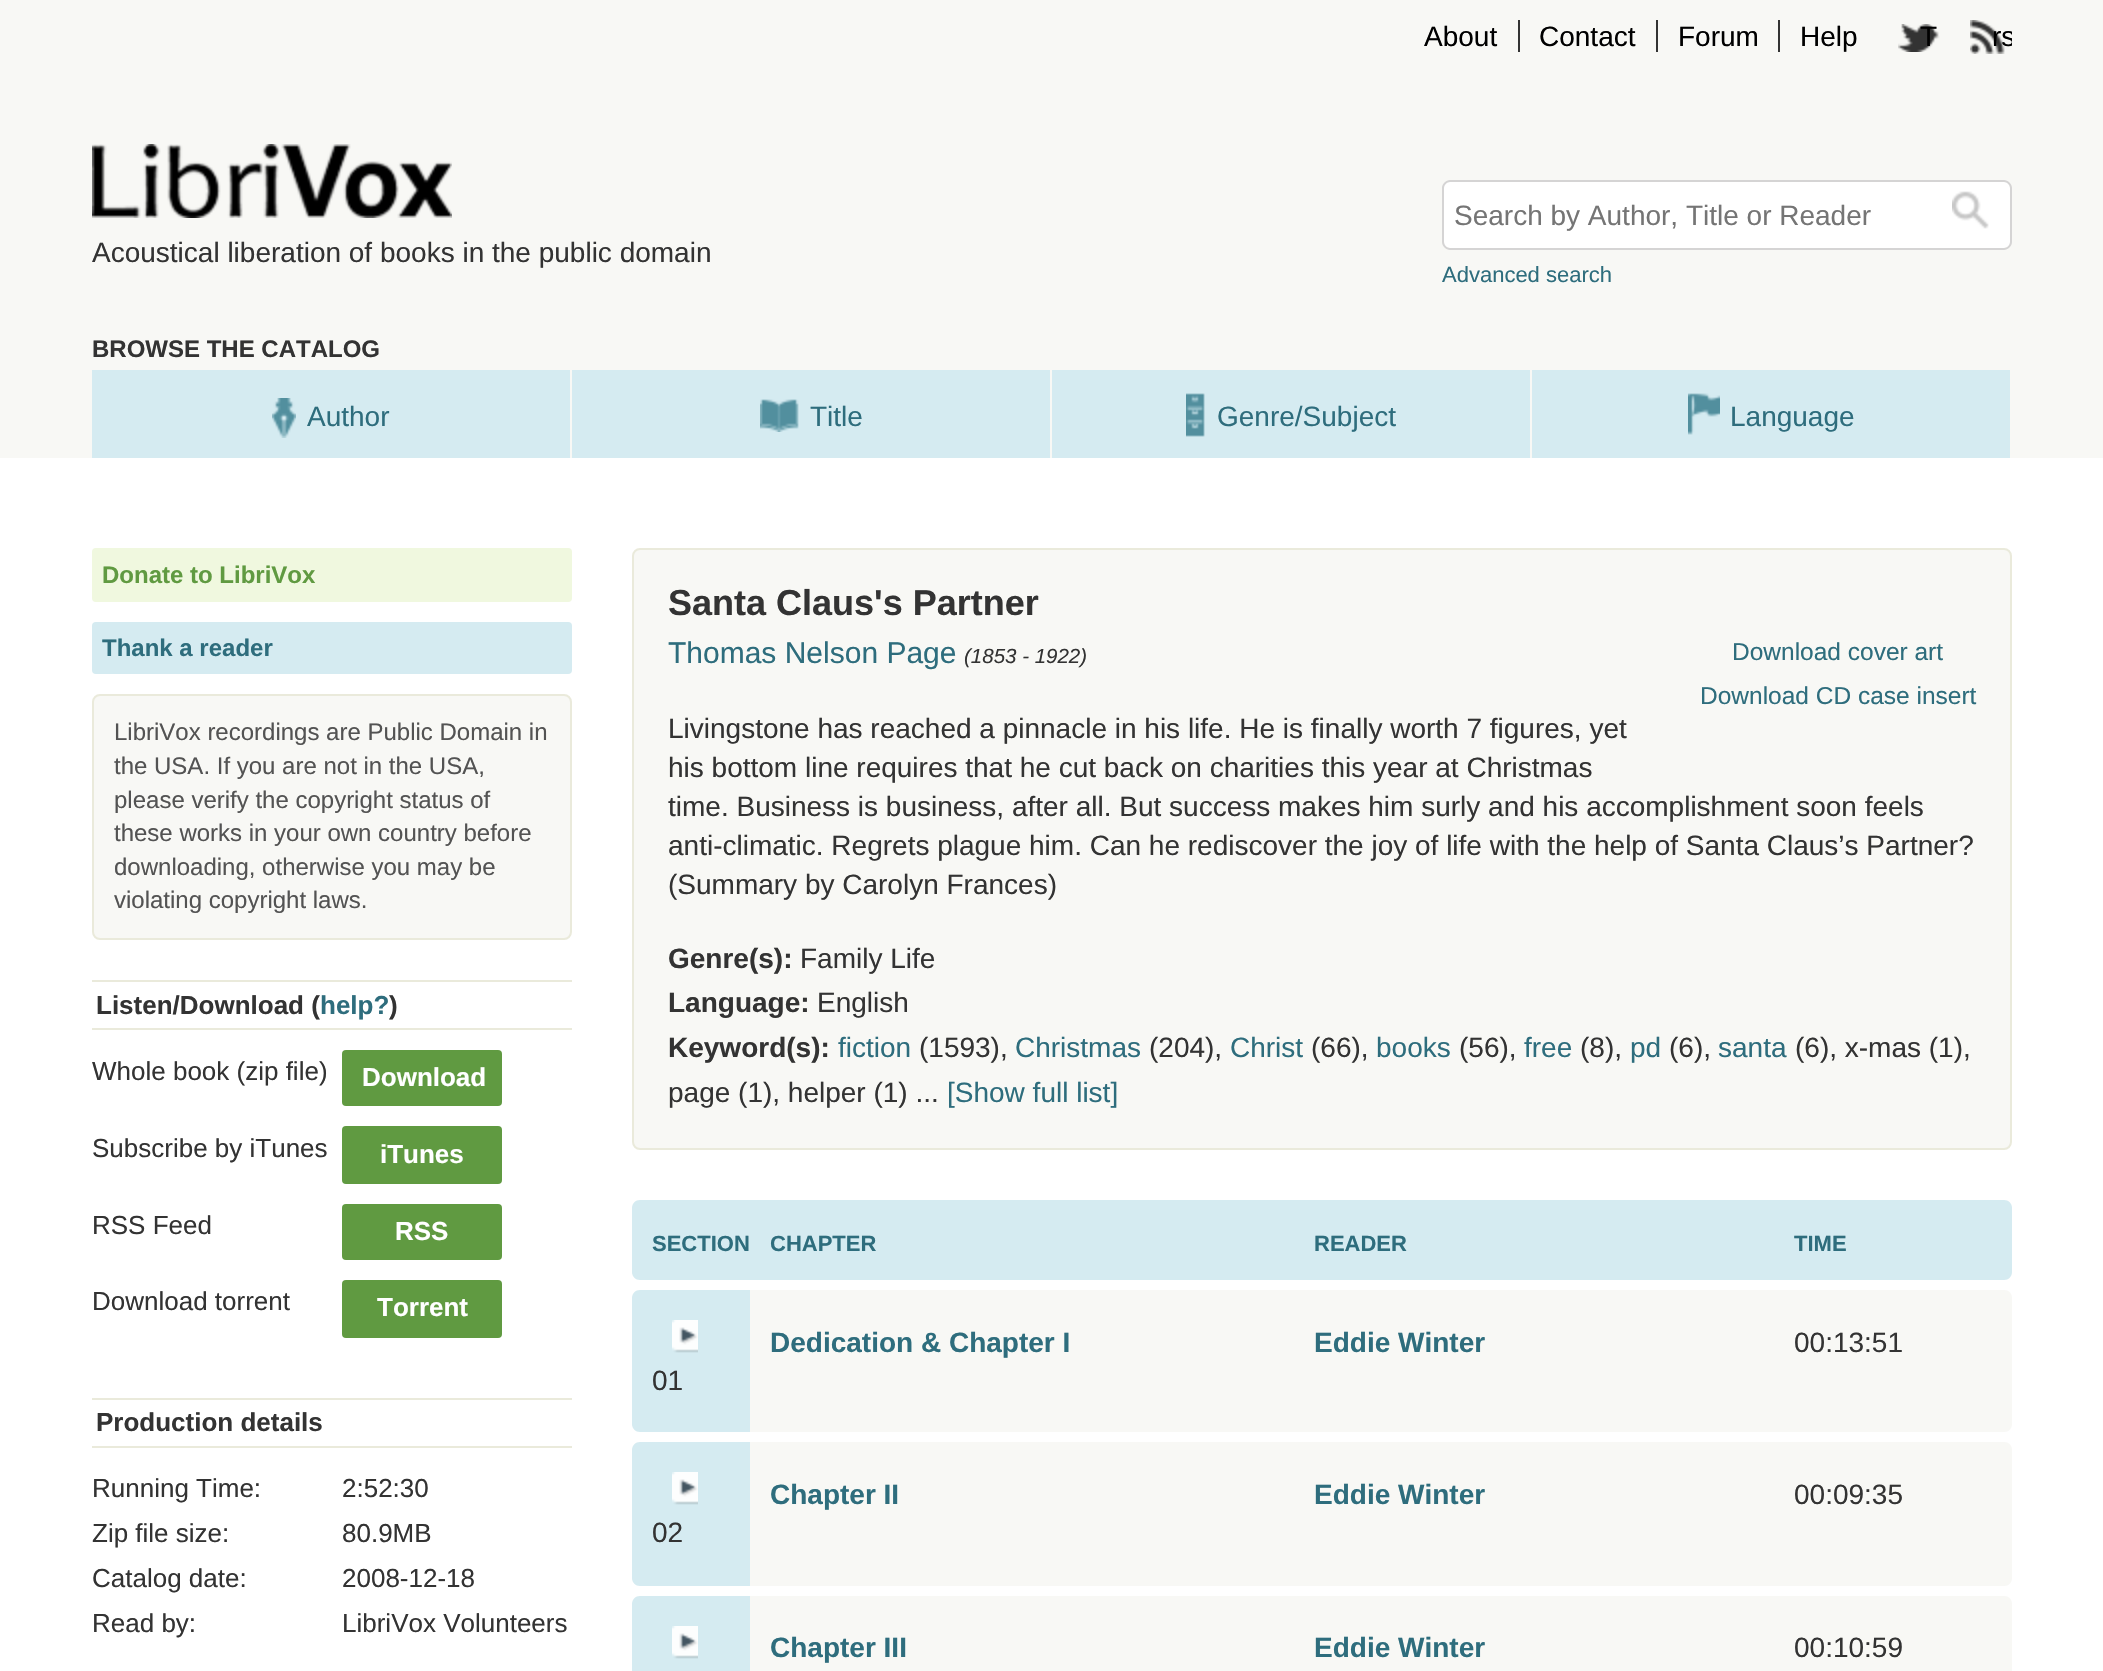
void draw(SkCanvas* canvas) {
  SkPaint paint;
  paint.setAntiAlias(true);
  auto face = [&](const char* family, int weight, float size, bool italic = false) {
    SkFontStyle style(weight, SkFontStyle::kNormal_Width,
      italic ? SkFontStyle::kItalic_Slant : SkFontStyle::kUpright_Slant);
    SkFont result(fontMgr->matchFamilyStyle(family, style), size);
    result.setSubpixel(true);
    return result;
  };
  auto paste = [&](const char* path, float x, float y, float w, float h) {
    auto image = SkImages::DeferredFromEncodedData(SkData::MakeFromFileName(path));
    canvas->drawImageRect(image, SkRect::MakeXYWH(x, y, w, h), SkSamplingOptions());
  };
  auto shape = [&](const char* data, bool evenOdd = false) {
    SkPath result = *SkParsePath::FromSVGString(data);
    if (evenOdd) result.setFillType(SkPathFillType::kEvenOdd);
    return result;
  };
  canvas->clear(0xffffffff);
  {
    const struct { float x, y, w, h; SkColor color; } items[] = {
      {0, 0, 2103, 458, 0xfff8f8f5},
      {1518, 20, 2, 32, 0xff333333},
      {1656, 20, 2, 32, 0xff333333},
      {1778, 20, 2, 32, 0xff333333},
    };
    for (auto [x, y, w, h, color] : items) {
      paint.setColor(color);
      canvas->drawRect(SkRect::MakeXYWH(x, y, w, h), paint);
    }
  }
  paste("img/1.png", 1898, 24, 42, 28);
  paste("img/2.png", 1970, 20, 35, 34);
  paste("img/3.png", 92, 144, 360, 74);
  paint.setColor(0xffffffff);
  canvas->drawPath(shape("M1450 182H1942V248H1450C1446.5 248 1444 245.5 1444 242V188C1444 184.5 1446.5 182 1450 182Z"), paint);
  paint.setColor(0xffd5d4d4);
  canvas->drawPath(shape("M1450 180H1942V250H1450C1446 250 1442 246 1442 242V188C1442 184 1446 180 1450 180ZM1450 182H1942V248H1450C1447 248 1444 245 1444 242V188C1444 185 1447 182 1450 182Z", true), paint);
  paint.setColor(0xffffffff);
  canvas->drawPath(shape("M1942 182H2004C2007.5 182 2010 184.5 2010 188V242C2010 245.5 2007.5 248 2004 248H1942Z"), paint);
  paste("img/4.png", 1952, 191, 37, 38);
  paint.setColor(0xffd5d4d4);
  canvas->drawPath(shape("M1942 180H2004C2008 180 2012 184 2012 188V242C2012 246 2008 250 2004 250H1942ZM1942 182H2004C2007 182 2010 185 2010 188V242C2010 245 2007 248 2004 248H1942Z", true), paint);
  paint.setColor(0xffd5ebf1);
  canvas->drawRect(SkRect::MakeXYWH(92, 370, 478, 88), paint);
  paste("img/5.png", 272, 398, 24, 40);
  canvas->drawRect(SkRect::MakeXYWH(572, 370, 478, 88), paint);
  paste("img/6.png", 760, 399, 39, 33);
  canvas->drawRect(SkRect::MakeXYWH(1052, 370, 478, 88), paint);
  paste("img/7.png", 1186, 393, 19, 44);
  canvas->drawRect(SkRect::MakeXYWH(1532, 370, 478, 88), paint);
  paste("img/8.png", 1688, 393, 32, 42);
  paint.setColor(0xfff0f8df);
  canvas->drawRoundRect(SkRect::MakeXYWH(92, 548, 480, 54), 4, 4, paint);
  paint.setColor(0xffd5ebf1);
  canvas->drawRoundRect(SkRect::MakeXYWH(92, 622, 480, 52), 4, 4, paint);
  paint.setColor(0xfff8f8f5);
  canvas->drawRoundRect(SkRect::MakeXYWH(93, 695, 478, 244), 7, 7, paint);
  paint.setStroke(true);
  paint.setStrokeWidth(2);
  paint.setColor(0xffeaeadb);
  canvas->drawRoundRect(SkRect::MakeXYWH(93, 695, 478, 244), 7, 7, paint);
  paint.setStroke(false);
  canvas->drawRect(SkRect::MakeXYWH(92, 980, 480, 2), paint);
  canvas->drawRect(SkRect::MakeXYWH(92, 1028, 480, 2), paint);
  paint.setColor(0xff609a41);
  canvas->drawRoundRect(SkRect::MakeXYWH(342, 1050, 160, 56), 4, 4, paint);
  canvas->drawRoundRect(SkRect::MakeXYWH(342, 1126, 160, 58), 4, 4, paint);
  canvas->drawRoundRect(SkRect::MakeXYWH(342, 1204, 160, 56), 4, 4, paint);
  canvas->drawRoundRect(SkRect::MakeXYWH(342, 1280, 160, 58), 4, 4, paint);
  paint.setColor(0xffeaeadb);
  canvas->drawRect(SkRect::MakeXYWH(92, 1398, 480, 2), paint);
  canvas->drawRect(SkRect::MakeXYWH(92, 1446, 480, 2), paint);
  paint.setColor(0xfff8f8f5);
  canvas->drawRoundRect(SkRect::MakeXYWH(633, 549, 1378, 600), 7, 7, paint);
  paint.setStroke(true);
  paint.setColor(0xffeaeadb);
  canvas->drawRoundRect(SkRect::MakeXYWH(633, 549, 1378, 600), 7, 7, paint);
  paint.setStroke(false);
  paint.setColor(0xffd5ebf1);
  canvas->drawPath(shape("M640 1200H750V1280H640C635.5 1280 632 1276.5 632 1272V1208C632 1203.5 635.5 1200 640 1200Z"), paint);
  canvas->drawRect(SkRect::MakeXYWH(750, 1200, 1024, 80), paint);
  canvas->drawPath(shape("M1774 1200H2004C2008.5 1200 2012 1203.5 2012 1208V1272C2012 1276.5 2008.5 1280 2004 1280H1774Z"), paint);
  paint.setColor(0xfff8f8f5);
  canvas->drawRect(SkRect::MakeXYWH(750, 1290, 1024, 142), paint);
  canvas->drawPath(shape("M1774 1290H2004C2008.5 1290 2012 1293.5 2012 1298V1424C2012 1428.5 2008.5 1432 2004 1432H1774Z"), paint);
  paint.setColor(0xffd5ebf1);
  canvas->drawPath(shape("M640 1290H750V1432H640C635.5 1432 632 1428.5 632 1424V1298C632 1293.5 635.5 1290 640 1290Z"), paint);
  paste("img/9.png", 672, 1320, 26, 33);
  paint.setColor(0xfff8f8f5);
  canvas->drawRect(SkRect::MakeXYWH(750, 1442, 1024, 144), paint);
  canvas->drawPath(shape("M1774 1442H2004C2008.5 1442 2012 1445.5 2012 1450V1578C2012 1582.5 2008.5 1586 2004 1586H1774Z"), paint);
  paint.setColor(0xffd5ebf1);
  canvas->drawPath(shape("M640 1442H750V1586H640C635.5 1586 632 1582.5 632 1578V1450C632 1445.5 635.5 1442 640 1442Z"), paint);
  paste("img/9.png", 672, 1472, 26, 33);
  canvas->drawPath(shape("M640 1596H750V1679H640C635.5 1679 632 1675.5 632 1671V1604C632 1599.5 635.5 1596 640 1596Z"), paint);
  paste("img/9.png", 672, 1626, 26, 33);
  paint.setColor(0xfff8f8f5);
  canvas->drawRect(SkRect::MakeXYWH(750, 1596, 1024, 75), paint);
  canvas->drawPath(shape("M1774 1596H2004C2008.5 1596 2012 1599.5 2012 1604V1671C2012 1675.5 2008.5 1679 2004 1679H1774Z"), paint);
  auto f0 = face("Liberation Sans", 400, 28);
  paint.setColor(0xff000000);
  {
    const struct { const char* s; float x, y; } items[] = {
      {"About", 1424, 46},
      {"Contact", 1539, 46},
      {"Forum", 1678, 46},
      {"Help", 1800, 46},
      {"T", 1920, 46},
    };
    for (auto [s, x, y] : items) {
      canvas->drawString(s, x, y, f0, paint);
    }
  }
  canvas->save();
  canvas->clipRect(SkRect::MakeXYWH(1970, 20, 42, 34));
  canvas->drawString("rs", 1992, 46, f0, paint);
  canvas->restore();
  paint.setColor(0xff333333);
  canvas->drawString("Acoustical liberation of books in the public domain", 92, 262, f0, paint);
  paint.setColor(0xff757575);
  canvas->drawString("Search by Author, Title or Reader", 1454, 225, f0, paint);
  auto f1 = face("Liberation Sans", 400, 22);
  paint.setColor(0xff2e6d7d);
  canvas->drawString("Advanced search", 1442, 282, f1, paint);
  auto f2 = face("Liberation Sans", 700, 24);
  paint.setColor(0xff333333);
  canvas->drawString("BROWSE THE CATALOG", 92, 357, f2, paint);
  paint.setColor(0xff2e6d7d);
  {
    const struct { const char* s; float x, y; } items[] = {
      {"Author", 307, 426},
      {"Title", 810, 426},
      {"Genre/Subject", 1217, 426},
      {"Language", 1730, 426},
    };
    for (auto [s, x, y] : items) {
      canvas->drawString(s, x, y, f0, paint);
    }
  }
  paint.setColor(0xff609a41);
  canvas->drawString("Donate to LibriVox", 102, 583, f2, paint);
  paint.setColor(0xff2e6d7d);
  canvas->drawString("Thank a reader", 102, 656, f2, paint);
  auto f3 = face("Liberation Sans", 400, 24);
  paint.setColor(0xff535353);
  {
    const struct { const char* s; float x, y; } items[] = {
      {"LibriVox recordings are Public Domain in", 114, 740},
      {"the USA. If you are not in the USA,", 114, 774},
      {"please verify the copyright status of", 114, 808},
      {"these works in your own country before", 114, 841},
      {"downloading, otherwise you may be", 114, 875},
      {"violating copyright laws.", 114, 908},
    };
    for (auto [s, x, y] : items) {
      canvas->drawString(s, x, y, f3, paint);
    }
  }
  auto f4 = face("Liberation Sans", 700, 26);
  paint.setColor(0xff333333);
  canvas->drawString("Listen/Download (", 96, 1014, f4, paint);
  paint.setColor(0xff2e6d7d);
  canvas->drawString("help?", 320, 1014, f4, paint);
  paint.setColor(0xff333333);
  canvas->drawString(")", 389, 1014, f4, paint);
  auto f5 = face("Liberation Sans", 400, 26);
  canvas->drawString("Whole book (zip file)", 92, 1080, f5, paint);
  paint.setColor(0xffffffff);
  canvas->drawString("Download", 362, 1086, f4, paint);
  paint.setColor(0xff333333);
  canvas->drawString("Subscribe by iTunes", 92, 1157, f5, paint);
  paint.setColor(0xffffffff);
  canvas->drawString("iTunes", 380, 1163, f4, paint);
  paint.setColor(0xff333333);
  canvas->drawString("RSS Feed", 92, 1234, f5, paint);
  paint.setColor(0xffffffff);
  canvas->drawString("RSS", 395, 1240, f4, paint);
  paint.setColor(0xff333333);
  canvas->drawString("Download torrent", 92, 1310, f5, paint);
  paint.setColor(0xffffffff);
  canvas->drawString("Torrent", 377, 1316, f4, paint);
  paint.setColor(0xff333333);
  canvas->drawString("Production details", 96, 1431, f4, paint);
  {
    const struct { const char* s; float x, y; } items[] = {
      {"Running Time:", 92, 1497},
      {"2:52:30", 342, 1497},
      {"Zip file size:", 92, 1542},
      {"80.9MB", 342, 1542},
      {"Catalog date:", 92, 1587},
      {"2008-12-18", 342, 1587},
      {"Read by:", 92, 1632},
      {"LibriVox Volunteers", 342, 1632},
    };
    for (auto [s, x, y] : items) {
      canvas->drawString(s, x, y, f5, paint);
    }
  }
  auto f6 = face("Liberation Sans", 700, 36);
  canvas->drawString("Santa Claus's Partner", 668, 615, f6, paint);
  auto f7 = face("Liberation Sans", 400, 30);
  paint.setColor(0xff2e6d7d);
  canvas->drawString("Thomas Nelson Page", 668, 663, f7, paint);
  auto f8 = face("Liberation Sans", 400, 20.5f, true);
  paint.setColor(0xff333333);
  canvas->drawString("(1853 - 1922)", 964, 663, f8, paint);
  auto f9 = face("Liberation Sans", 400, 24.5f);
  paint.setColor(0xff2e6d7d);
  canvas->drawString("Download cover art", 1732, 660, f9, paint);
  canvas->drawString("Download CD case insert", 1700, 704, f9, paint);
  paint.setColor(0xff333333);
  {
    const struct { const char* s; float x, y; } items[] = {
      {"Livingstone has reached a pinnacle in his life. He is finally worth 7 figures, yet", 668, 738},
      {"his bottom line requires that he cut back on charities this year at Christmas", 668, 777},
      {"time. Business is business, after all. But success makes him surly and his accomplishment soon feels", 668, 816},
      {"anti-climatic. Regrets plague him. Can he rediscover the joy of life with the help of Santa Claus’s Partner?", 668, 855},
      {"(Summary by Carolyn Frances)", 668, 894},
    };
    for (auto [s, x, y] : items) {
      canvas->drawString(s, x, y, f0, paint);
    }
  }
  auto f10 = face("Liberation Sans", 700, 28);
  canvas->drawString("Genre(s):", 668, 968, f10, paint);
  canvas->drawString("Family Life", 800, 968, f0, paint);
  canvas->drawString("Language:", 668, 1012, f10, paint);
  canvas->drawString("English", 817, 1012, f0, paint);
  canvas->drawString("Keyword(s):", 668, 1057, f10, paint);
  paint.setColor(0xff2e6d7d);
  canvas->drawString("fiction", 838, 1057, f0, paint);
  paint.setColor(0xff333333);
  canvas->drawString("(1593),", 919, 1057, f0, paint);
  paint.setColor(0xff2e6d7d);
  canvas->drawString("Christmas", 1015, 1057, f0, paint);
  paint.setColor(0xff333333);
  canvas->drawString("(204),", 1149, 1057, f0, paint);
  paint.setColor(0xff2e6d7d);
  canvas->drawString("Christ", 1230, 1057, f0, paint);
  paint.setColor(0xff333333);
  canvas->drawString("(66),", 1311, 1057, f0, paint);
  paint.setColor(0xff2e6d7d);
  canvas->drawString("books", 1376, 1057, f0, paint);
  paint.setColor(0xff333333);
  canvas->drawString("(56),", 1459, 1057, f0, paint);
  paint.setColor(0xff2e6d7d);
  canvas->drawString("free", 1524, 1057, f0, paint);
  paint.setColor(0xff333333);
  canvas->drawString("(8),", 1580, 1057, f0, paint);
  paint.setColor(0xff2e6d7d);
  canvas->drawString("pd", 1630, 1057, f0, paint);
  paint.setColor(0xff333333);
  canvas->drawString("(6),", 1669, 1057, f0, paint);
  paint.setColor(0xff2e6d7d);
  canvas->drawString("santa", 1718, 1057, f0, paint);
  paint.setColor(0xff333333);
  canvas->drawString("(6), x-mas (1),", 1795, 1057, f0, paint);
  canvas->drawString("page (1), helper (1) ...", 668, 1102, f0, paint);
  paint.setColor(0xff2e6d7d);
  canvas->drawString("[Show full list]", 947, 1102, f0, paint);
  auto f11 = face("Liberation Sans", 700, 22);
  {
    const struct { const char* s; float x, y; } items[] = {
      {"SECTION", 652, 1251},
      {"CHAPTER", 770, 1251},
      {"READER", 1314, 1251},
      {"TIME", 1794, 1251},
    };
    for (auto [s, x, y] : items) {
      canvas->drawString(s, x, y, f11, paint);
    }
  }
  canvas->drawString("Dedication & Chapter I", 770, 1352, f10, paint);
  canvas->drawString("Eddie Winter", 1314, 1352, f10, paint);
  paint.setColor(0xff333333);
  canvas->drawString("00:13:51", 1794, 1352, f0, paint);
  canvas->drawString("01", 652, 1390, f0, paint);
  paint.setColor(0xff2e6d7d);
  canvas->drawString("Chapter II", 770, 1504, f10, paint);
  canvas->drawString("Eddie Winter", 1314, 1504, f10, paint);
  paint.setColor(0xff333333);
  canvas->drawString("00:09:35", 1794, 1504, f0, paint);
  canvas->drawString("02", 652, 1542, f0, paint);
  paint.setColor(0xff2e6d7d);
  canvas->drawString("Chapter III", 770, 1657, f10, paint);
  canvas->drawString("Eddie Winter", 1314, 1657, f10, paint);
  paint.setColor(0xff333333);
  canvas->drawString("00:10:59", 1794, 1657, f0, paint);
}
